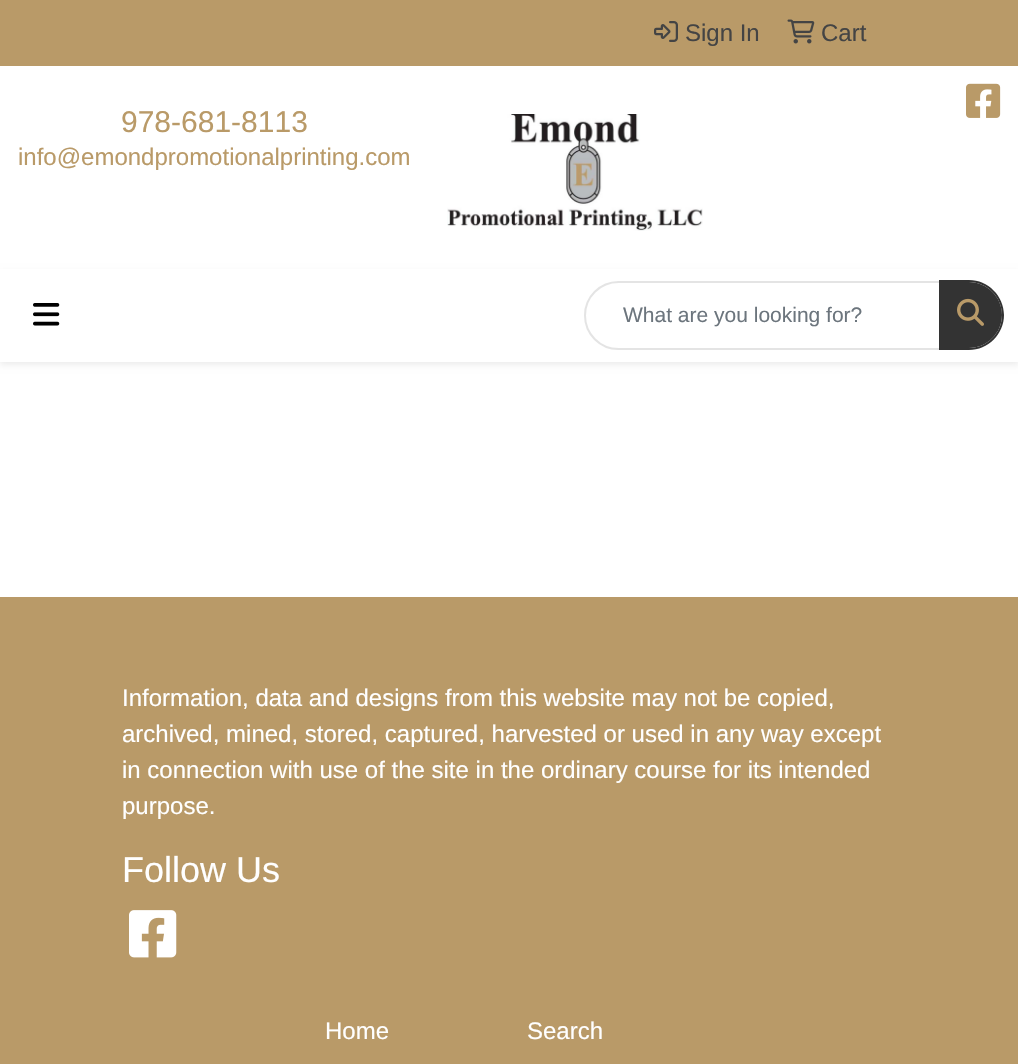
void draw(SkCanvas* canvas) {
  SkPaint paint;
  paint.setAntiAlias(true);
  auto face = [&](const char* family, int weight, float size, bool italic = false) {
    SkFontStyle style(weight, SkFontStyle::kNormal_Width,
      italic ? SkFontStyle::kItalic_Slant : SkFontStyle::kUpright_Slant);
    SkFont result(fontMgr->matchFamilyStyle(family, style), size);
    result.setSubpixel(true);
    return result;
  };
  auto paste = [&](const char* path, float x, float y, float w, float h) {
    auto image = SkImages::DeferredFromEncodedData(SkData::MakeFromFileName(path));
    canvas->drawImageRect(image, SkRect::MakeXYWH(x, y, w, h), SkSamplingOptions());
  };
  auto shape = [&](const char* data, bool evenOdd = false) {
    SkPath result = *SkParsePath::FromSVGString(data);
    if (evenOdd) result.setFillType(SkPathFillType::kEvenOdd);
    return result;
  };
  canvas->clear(0xffffffff);
  paint.setColor(0xffb99a68);
  canvas->drawRect(SkRect::MakeXYWH(0, 0, 1018, 66), paint);
  paste("img/1.png", 654, 21, 24, 21);
  paste("img/2.png", 787, 19, 28, 25);
  paste("img/3.png", 966, 83, 35, 35);
  paste("img/4.png", 447, 114, 256, 117);
  paint.setColor(0x12000000);
  paint.setMaskFilter(SkMaskFilter::MakeBlur(kNormal_SkBlurStyle, 3));
  canvas->drawRect(SkRect::MakeXYWH(0, 272, 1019, 93), paint);
  paint.setMaskFilter(nullptr);
  paint.setColor(0xffffffff);
  canvas->drawRect(SkRect::MakeXYWH(0, 269, 1018, 93), paint);
  paste("img/5.png", 33, 303, 27, 23);
  paint.setStroke(true);
  paint.setStrokeWidth(2);
  paint.setColor(0xffe4e4e4);
  canvas->drawPath(shape("M618.5 282H940V349H618.5C600 349 585 334 585 315.5C585 297 600 282 618.5 282Z"), paint);
  paint.setStroke(false);
  paint.setColor(0xff333333);
  canvas->drawPath(shape("M939 282H969C987 282 1002 297 1002 315C1002 333 987 348 969 348H939Z"), paint);
  canvas->drawPath(shape("M939 280H969C988 280 1004 296 1004 315C1004 334 988 350 969 350H939ZM939 282H969C987 282 1002 297 1002 315C1002 333 987 348 969 348H939Z", true), paint);
  paste("img/6.png", 957, 298, 27, 28);
  paint.setColor(0xffb99a68);
  canvas->drawRect(SkRect::MakeXYWH(0, 597, 1018, 467), paint);
  paste("img/7.png", 129, 910, 48, 48);
  auto f0 = face("Liberation Sans", 400, 24);
  paint.setColor(0xff444444);
  canvas->drawString("Sign In", 685, 41, f0, paint);
  canvas->drawString("Cart", 821, 41, f0, paint);
  auto f1 = face("Liberation Sans", 400, 30);
  paint.setColor(0xffb99a68);
  canvas->drawString("978-681-8113", 121, 132, f1, paint);
  canvas->drawString("info@emondpromotionalprinting.com", 18, 165, f0, paint);
  auto f2 = face("Liberation Sans", 400, 21);
  paint.setColor(0xff6c757d);
  canvas->drawString("What are you looking for?", 623, 322, f2, paint);
  paint.setColor(0xffffffff);
  {
    const struct { const char* s; float x, y; } items[] = {
      {"Information, data and designs from this website may not be copied,", 122, 706},
      {"archived, mined, stored, captured, harvested or used in any way except", 122, 742},
      {"in connection with use of the site in the ordinary course for its intended", 122, 778},
      {"purpose.", 122, 814},
    };
    for (auto [s, x, y] : items) {
      canvas->drawString(s, x, y, f0, paint);
    }
  }
  auto f3 = face("Liberation Sans", 400, 36);
  canvas->drawString("Follow Us", 122, 882, f3, paint);
  canvas->drawString("Home", 325, 1039, f0, paint);
  canvas->drawString("Search", 527, 1039, f0, paint);
}
